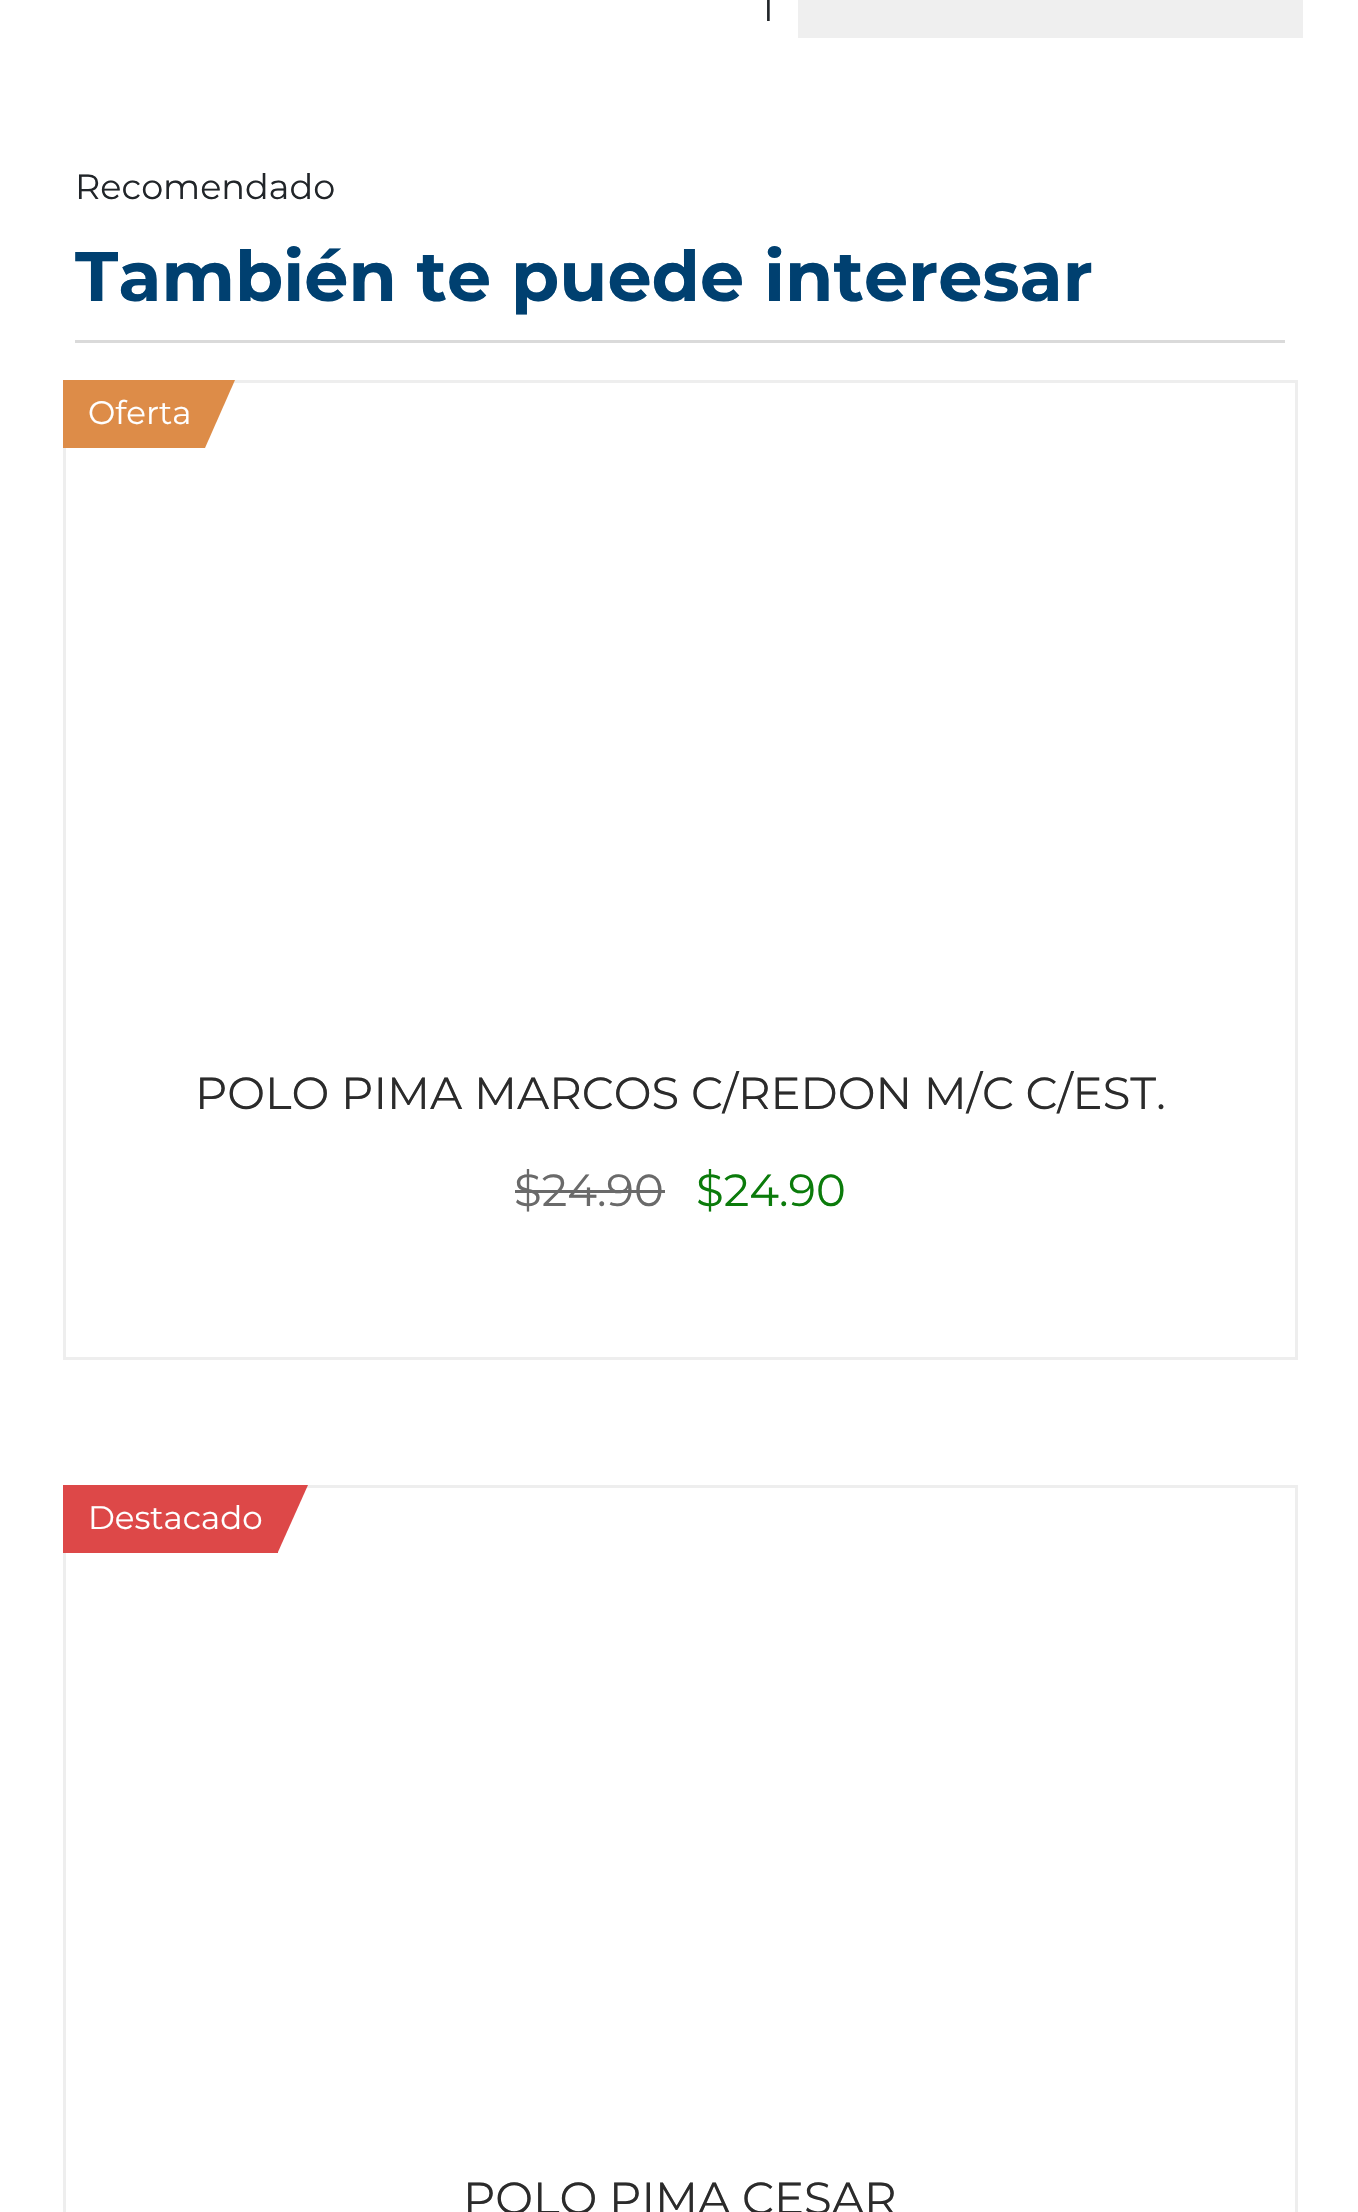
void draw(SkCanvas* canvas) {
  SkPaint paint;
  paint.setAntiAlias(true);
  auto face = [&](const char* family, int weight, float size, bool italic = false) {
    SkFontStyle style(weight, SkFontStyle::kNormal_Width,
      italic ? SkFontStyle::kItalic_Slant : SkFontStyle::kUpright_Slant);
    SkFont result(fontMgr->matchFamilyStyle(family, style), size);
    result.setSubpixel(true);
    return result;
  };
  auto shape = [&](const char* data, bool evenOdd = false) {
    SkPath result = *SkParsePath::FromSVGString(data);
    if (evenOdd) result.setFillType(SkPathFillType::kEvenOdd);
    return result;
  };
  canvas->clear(0xffffffff);
  paint.setColor(0xffefefef);
  canvas->drawRect(SkRect::MakeXYWH(798, 0, 505, 38), paint);
  paint.setColor(0xffdadada);
  canvas->drawRect(SkRect::MakeXYWH(75, 340, 1210, 3), paint);
  paint.setStroke(true);
  paint.setStrokeWidth(3);
  paint.setColor(0xffeeeeee);
  canvas->drawRect(SkRect::MakeXYWH(64.5f, 381.5f, 1232, 977), paint);
  paint.setStroke(false);
  paint.setColor(0xffdd8c48);
  canvas->drawRect(SkRect::MakeXYWH(63, 380, 142, 68), paint);
  canvas->drawPath(shape("M205 380H235L205 448Z"), paint);
  paint.setColor(0xff6a6a6a);
  canvas->drawRect(SkRect::MakeXYWH(515, 1190, 150, 3), paint);
  paint.setStroke(true);
  paint.setColor(0xffeeeeee);
  canvas->drawRect(SkRect::MakeXYWH(64.5f, 1486.5f, 1232, 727), paint);
  paint.setStroke(false);
  paint.setColor(0xffdd4848);
  canvas->drawRect(SkRect::MakeXYWH(63, 1485, 215, 68), paint);
  canvas->drawPath(shape("M278 1485H308L278 1552Z"), paint);
  auto f0 = face("Montserrat", 400, 35);
  paint.setColor(0xff212529);
  canvas->drawString("1", 761, 21, f0, paint);
  canvas->drawString("Recomendado", 75, 199, f0, paint);
  auto f1 = face("Montserrat", 700, 70);
  paint.setColor(0xff004070);
  canvas->drawString("También te puede interesar", 75, 301, f1, paint);
  auto f2 = face("Montserrat", 400, 32.5f);
  paint.setColor(0xffffffff);
  canvas->drawString("Oferta", 88, 424, f2, paint);
  auto f3 = face("Montserrat", 400, 45);
  paint.setColor(0xff2b2b2b);
  canvas->drawString("POLO PIMA MARCOS C/REDON M/C C/EST.", 195, 1109, f3, paint);
  paint.setColor(0xff6a6a6a);
  canvas->drawString("$24.90", 514, 1206, f3, paint);
  paint.setColor(0xff0b7b0b);
  canvas->drawString("$24.90", 696, 1206, f3, paint);
  paint.setColor(0xffffffff);
  canvas->drawString("Destacado", 88, 1529, f2, paint);
  paint.setColor(0xff2b2b2b);
  canvas->drawString("POLO PIMA CESAR", 463, 2214, f3, paint);
}
